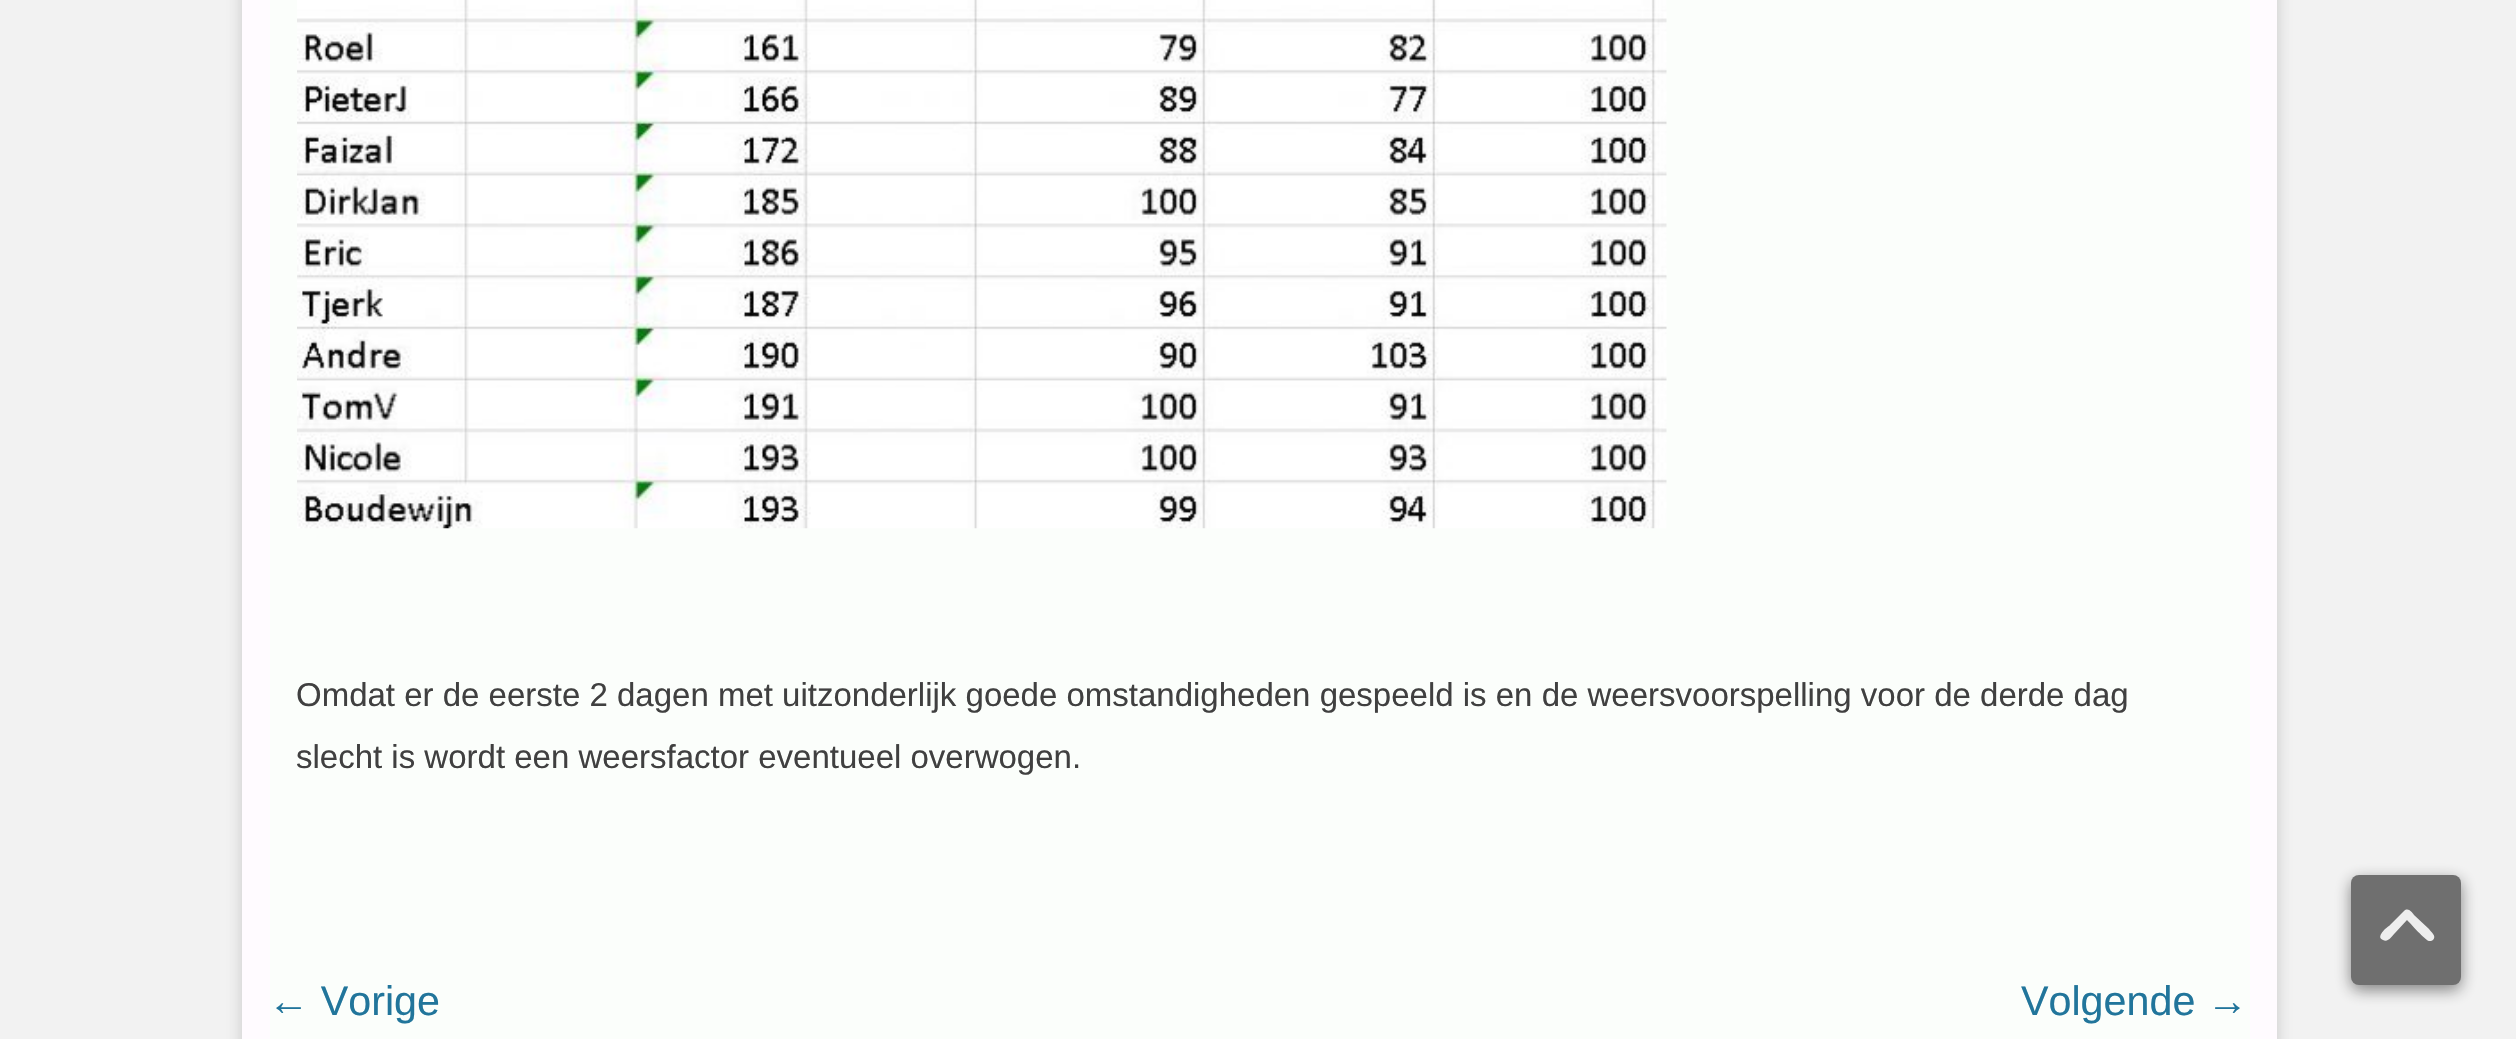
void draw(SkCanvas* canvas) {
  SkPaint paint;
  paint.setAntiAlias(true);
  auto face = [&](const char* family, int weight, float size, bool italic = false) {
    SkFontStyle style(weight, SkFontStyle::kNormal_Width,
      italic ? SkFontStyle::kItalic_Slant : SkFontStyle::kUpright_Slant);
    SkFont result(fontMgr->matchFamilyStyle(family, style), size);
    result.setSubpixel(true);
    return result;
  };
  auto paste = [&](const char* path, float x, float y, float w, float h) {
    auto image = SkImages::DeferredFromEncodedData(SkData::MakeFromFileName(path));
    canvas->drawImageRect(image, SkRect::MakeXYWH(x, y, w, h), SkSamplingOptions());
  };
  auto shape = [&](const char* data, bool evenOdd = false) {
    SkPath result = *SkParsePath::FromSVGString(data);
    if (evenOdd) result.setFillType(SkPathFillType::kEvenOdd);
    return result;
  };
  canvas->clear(0xfff2f2f2);
  paint.setColor(0x4d646464);
  paint.setMaskFilter(SkMaskFilter::MakeBlur(kNormal_SkBlurStyle, 8));
  canvas->drawRoundRect(SkRect::MakeXYWH(242, -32, 2035, 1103), 8, 8, paint);
  paint.setMaskFilter(nullptr);
  paint.setColor(0xfffffbff);
  canvas->drawRect(SkRect::MakeXYWH(242, 0, 2035, 1039), paint);
  paint.setColor(0xfffbfefb);
  canvas->drawRect(SkRect::MakeXYWH(270, 0, 1980, 1039), paint);
  paste("img/1.png", 297, 0, 1370, 529);
  paint.setColor(0x800f0f0f);
  paint.setMaskFilter(SkMaskFilter::MakeBlur(kNormal_SkBlurStyle, 8));
  canvas->drawRoundRect(SkRect::MakeXYWH(2351, 880, 110, 110), 8, 8, paint);
  paint.setMaskFilter(nullptr);
  paint.setColor(0xff6f6f6f);
  canvas->drawRoundRect(SkRect::MakeXYWH(2351, 875, 110, 110), 8, 8, paint);
  paint.setColor(0xffeeeeee);
  canvas->drawPath(shape("M2404 911C2408 907 2412 912 2414 915L2429 929C2431 932 2437 936 2433 940C2432 941 2430 941 2429 941C2425 940 2411 924 2407 920L2395 933C2392 936 2388 943 2383 940C2375 937 2387 927 2389 926Z"), paint);
  auto f0 = face("Liberation Sans", 400, 33);
  paint.setColor(0xff404040);
  canvas->drawString("Omdat er de eerste 2 dagen met uitzonderlijk goede omstandigheden gespeeld is en de weersvoorspelling voor de derde dag", 296, 706, f0, paint);
  canvas->drawString("slecht is wordt een weersfactor eventueel overwogen.", 296, 768, f0, paint);
  auto f1 = face("Liberation Sans", 400, 41.25f);
  paint.setColor(0xff21759b);
  canvas->drawString("← Vorige", 268, 1015, f1, paint);
  canvas->drawString("Volgende →", 2021, 1015, f1, paint);
}
